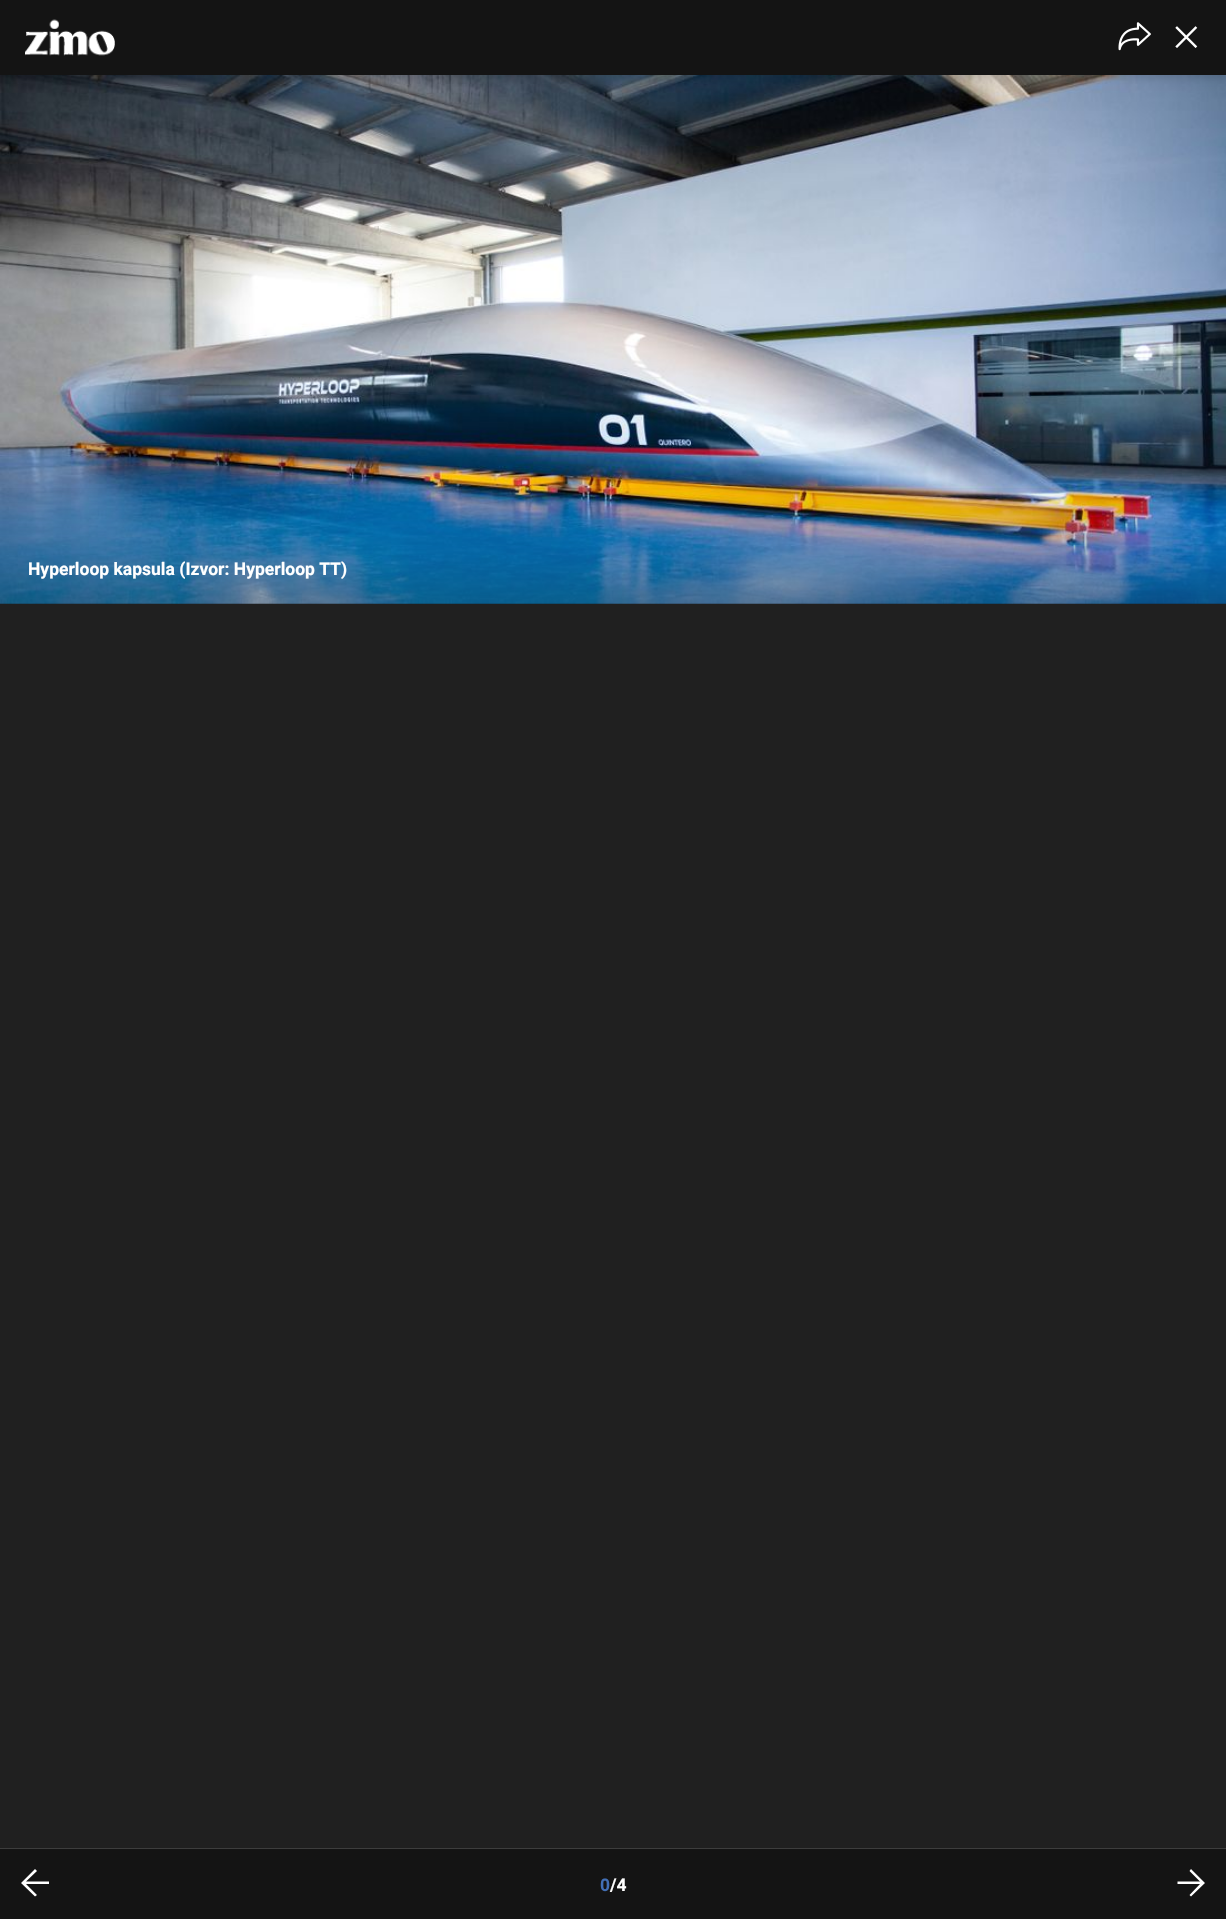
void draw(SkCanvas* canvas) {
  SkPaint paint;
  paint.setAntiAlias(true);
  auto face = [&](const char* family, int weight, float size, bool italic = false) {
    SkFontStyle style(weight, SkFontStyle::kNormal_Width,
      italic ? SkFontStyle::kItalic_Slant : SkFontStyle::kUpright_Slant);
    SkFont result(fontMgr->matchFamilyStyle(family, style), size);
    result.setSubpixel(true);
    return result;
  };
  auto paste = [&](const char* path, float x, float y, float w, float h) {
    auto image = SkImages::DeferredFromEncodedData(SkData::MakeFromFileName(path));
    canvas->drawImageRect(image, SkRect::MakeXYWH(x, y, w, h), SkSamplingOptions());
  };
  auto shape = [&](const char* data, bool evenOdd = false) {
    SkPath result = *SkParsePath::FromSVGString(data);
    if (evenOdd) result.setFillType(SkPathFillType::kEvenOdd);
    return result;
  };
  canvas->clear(0xff202020);
  paste("img/4.png", 0, 75, 1226, 529);
  paint.setColor(0x26000000);
  paint.setMaskFilter(SkMaskFilter::MakeBlur(kNormal_SkBlurStyle, 4.5f));
  canvas->drawRect(SkRect::MakeXYWH(0, 3, 1226, 75), paint);
  paint.setMaskFilter(nullptr);
  paint.setColor(0xff141414);
  canvas->drawRect(SkRect::MakeXYWH(0, 0, 1226, 75), paint);
  paste("img/1.png", 25, 19, 90, 37);
  paste("img/2.png", 1118, 22, 33, 29);
  paste("img/3.png", 1175, 26, 23, 22);
  {
    const SkColor colors[] = {0x66141414, 0x00141414};
    const float stops[] = {0, 1};
    const SkPoint ends[] = {{613, 604}, {613, 481}};
    paint.setShader(SkGradientShader::MakeLinear(ends, colors, stops, 2, SkTileMode::kClamp));
    paint.setAlpha(255);
  }
  canvas->drawRect(SkRect::MakeXYWH(0, 488, 1226, 116), paint);
  paint.setShader(nullptr);
  paint.setColor(0xff141414);
  canvas->drawRect(SkRect::MakeXYWH(0, 1849, 1226, 70), paint);
  paint.setColor(0xff3d3d3d);
  canvas->drawRect(SkRect::MakeXYWH(0, 1848, 1226, 1), paint);
  paint.setColor(0xffffffff);
  canvas->drawPath(shape("M35 1896.5L37 1895L26 1884H49V1881.5H26L37 1871L35 1869L21 1883Z"), paint);
  canvas->drawPath(shape("M1191 1896.5L1189.5 1895L1200 1884H1177.5V1881.5H1200L1189.5 1871L1191 1869L1205 1883Z"), paint);
  auto f0 = face("Roboto", 700, 17.5f);
  canvas->drawString("Hyperloop kapsula (Izvor: Hyperloop TT)", 28, 575, f0, paint);
  paint.setColor(0xff426fb5);
  canvas->drawString("0", 600, 1891, f0, paint);
  paint.setColor(0xffffffff);
  canvas->drawString("/4", 610, 1891, f0, paint);
}
